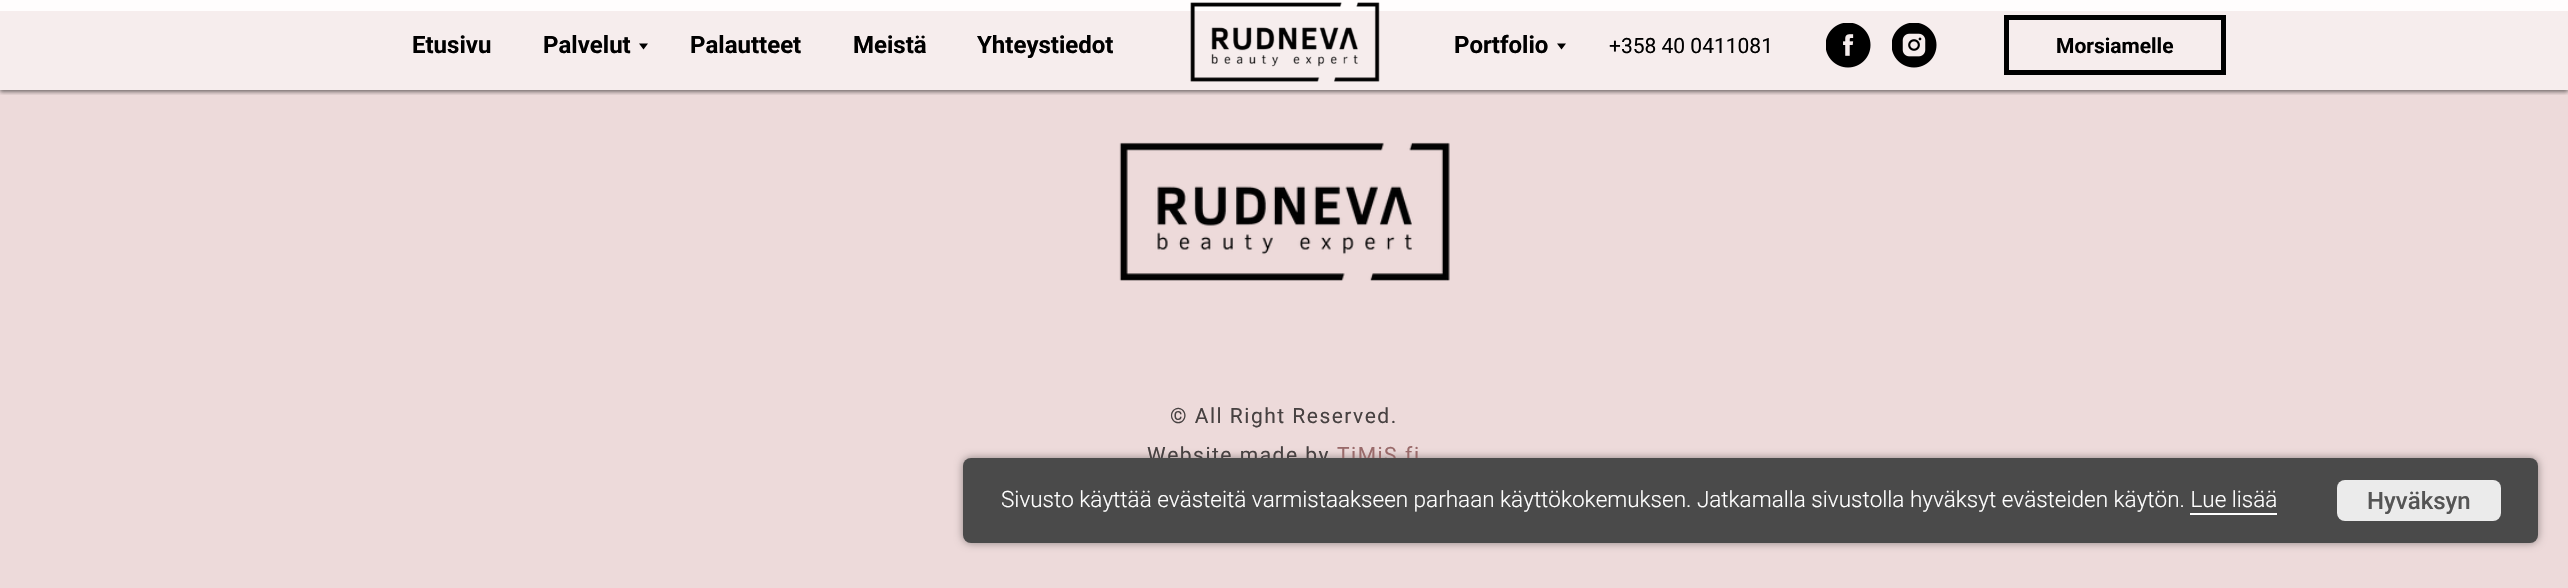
void draw(SkCanvas* canvas) {
  SkPaint paint;
  paint.setAntiAlias(true);
  auto face = [&](const char* family, int weight, float size, bool italic = false) {
    SkFontStyle style(weight, SkFontStyle::kNormal_Width,
      italic ? SkFontStyle::kItalic_Slant : SkFontStyle::kUpright_Slant);
    SkFont result(fontMgr->matchFamilyStyle(family, style), size);
    result.setSubpixel(true);
    return result;
  };
  auto writeSpaced = [&](const char* s, float x, float y, const SkFont& font, const SkPaint& ink, float letter, float word) {
    std::vector<SkGlyphID> glyphs(font.countText(s, strlen(s), SkTextEncoding::kUTF8));
    std::vector<float> xs(glyphs.size());
    font.textToGlyphs(s, strlen(s), SkTextEncoding::kUTF8, glyphs);
    font.getXPos(glyphs, xs, x);
    float extra = 0;
    for (size_t i = 0; i < glyphs.size(); i++) {
      xs[i] += extra;
      extra += letter + word * (glyphs[i] == font.unicharToGlyph(' '));
    }
    canvas->drawTextBlob(SkTextBlob::MakeFromPosHGlyphs(glyphs, xs, y, font), 0, 0, ink);
  };
  auto paste = [&](const char* path, float x, float y, float w, float h) {
    auto image = SkImages::DeferredFromEncodedData(SkData::MakeFromFileName(path));
    canvas->drawImageRect(image, SkRect::MakeXYWH(x, y, w, h), SkSamplingOptions());
  };
  auto shape = [&](const char* data, bool evenOdd = false) {
    SkPath result = *SkParsePath::FromSVGString(data);
    if (evenOdd) result.setFillType(SkPathFillType::kEvenOdd);
    return result;
  };
  canvas->clear(0xfffffdfd);
  paint.setColor(0xffeddada);
  canvas->drawRect(SkRect::MakeXYWH(0, 90, 2568, 498), paint);
  paint.setColor(0xfff6eded);
  canvas->drawRect(SkRect::MakeXYWH(0, 11, 2568, 79), paint);
  canvas->save();
  canvas->clipRect(SkRect::MakeXYWH(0, 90, 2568, 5));
  paint.setColor(0x80000000);
  paint.setMaskFilter(SkMaskFilter::MakeBlur(kNormal_SkBlurStyle, 2));
  canvas->drawRect(SkRect::MakeXYWH(0, 2, 2568, 90), paint);
  paint.setMaskFilter(nullptr);
  canvas->restore();
  paint.setColor(0xff000000);
  canvas->drawPath(shape("M639 43.5H648L643.5 49.5Z"), paint);
  paste("img/1.png", 1190, 2, 190, 80);
  canvas->drawPath(shape("M1557 43.5H1566L1561.5 49.5Z"), paint);
  paste("img/2.png", 1826, 23, 45, 45);
  paste("img/3.png", 1892, 23, 45, 45);
  paint.setStroke(true);
  paint.setStrokeWidth(5);
  canvas->drawRect(SkRect::MakeXYWH(2006.5f, 17.5f, 217, 55), paint);
  paste("img/4.png", 1119, 142, 331, 139);
  paint.setStroke(false);
  paint.setColor(0x66000000);
  paint.setMaskFilter(SkMaskFilter::MakeBlur(kNormal_SkBlurStyle, 4));
  canvas->drawRoundRect(SkRect::MakeXYWH(963, 458, 1575, 85), 8, 8, paint);
  paint.setMaskFilter(nullptr);
  auto f0 = face("Roboto", 700, 24);
  paint.setColor(0xff000000);
  {
    const struct { const char* s; float x, y; } items[] = {
      {"Etusivu", 412, 53},
      {"Palvelut", 543, 53},
      {"Palautteet", 690, 53},
      {"Meistä", 853, 53},
      {"Yhteystiedot", 977, 53},
      {"Portfolio", 1454, 53},
    };
    for (auto [s, x, y] : items) {
      canvas->drawString(s, x, y, f0, paint);
    }
  }
  auto f1 = face("Roboto", 400, 21);
  canvas->drawString("+358 40 0411081", 1609, 53, f1, paint);
  auto f2 = face("Roboto", 700, 21);
  canvas->drawString("Morsiamelle", 2056, 53, f2, paint);
  paint.setColor(0xff474141);
  writeSpaced("© All Right Reserved.", 1170, 423, f1, paint, 1.5f, 0);
  writeSpaced("Website made by", 1147, 462, f1, paint, 1.5f, 0);
  paint.setColor(0xff996a6a);
  writeSpaced("TiMiS.fi", 1337, 462, f1, paint, 1.5f, 0);
  paint.setColor(0xff4a4a4a);
  canvas->drawRoundRect(SkRect::MakeXYWH(963, 458, 1575, 85), 8, 8, paint);
  auto f3 = face("Roboto", 300, 22.5f);
  paint.setColor(0xffffffff);
  canvas->drawString("Sivusto käyttää evästeitä varmistaakseen parhaan käyttökokemuksen. Jatkamalla sivustolla hyväksyt evästeiden käytön. Lue lisää", 1001, 507, f3, paint);
  canvas->drawRect(SkRect::MakeXYWH(2190, 513, 87, 2), paint);
  paint.setColor(0xffebebeb);
  canvas->drawRoundRect(SkRect::MakeXYWH(2337, 480, 164, 41), 8, 8, paint);
  auto f4 = face("Roboto", 500, 24);
  paint.setColor(0xff555555);
  canvas->drawString("Hyväksyn", 2367, 509, f4, paint);
}
